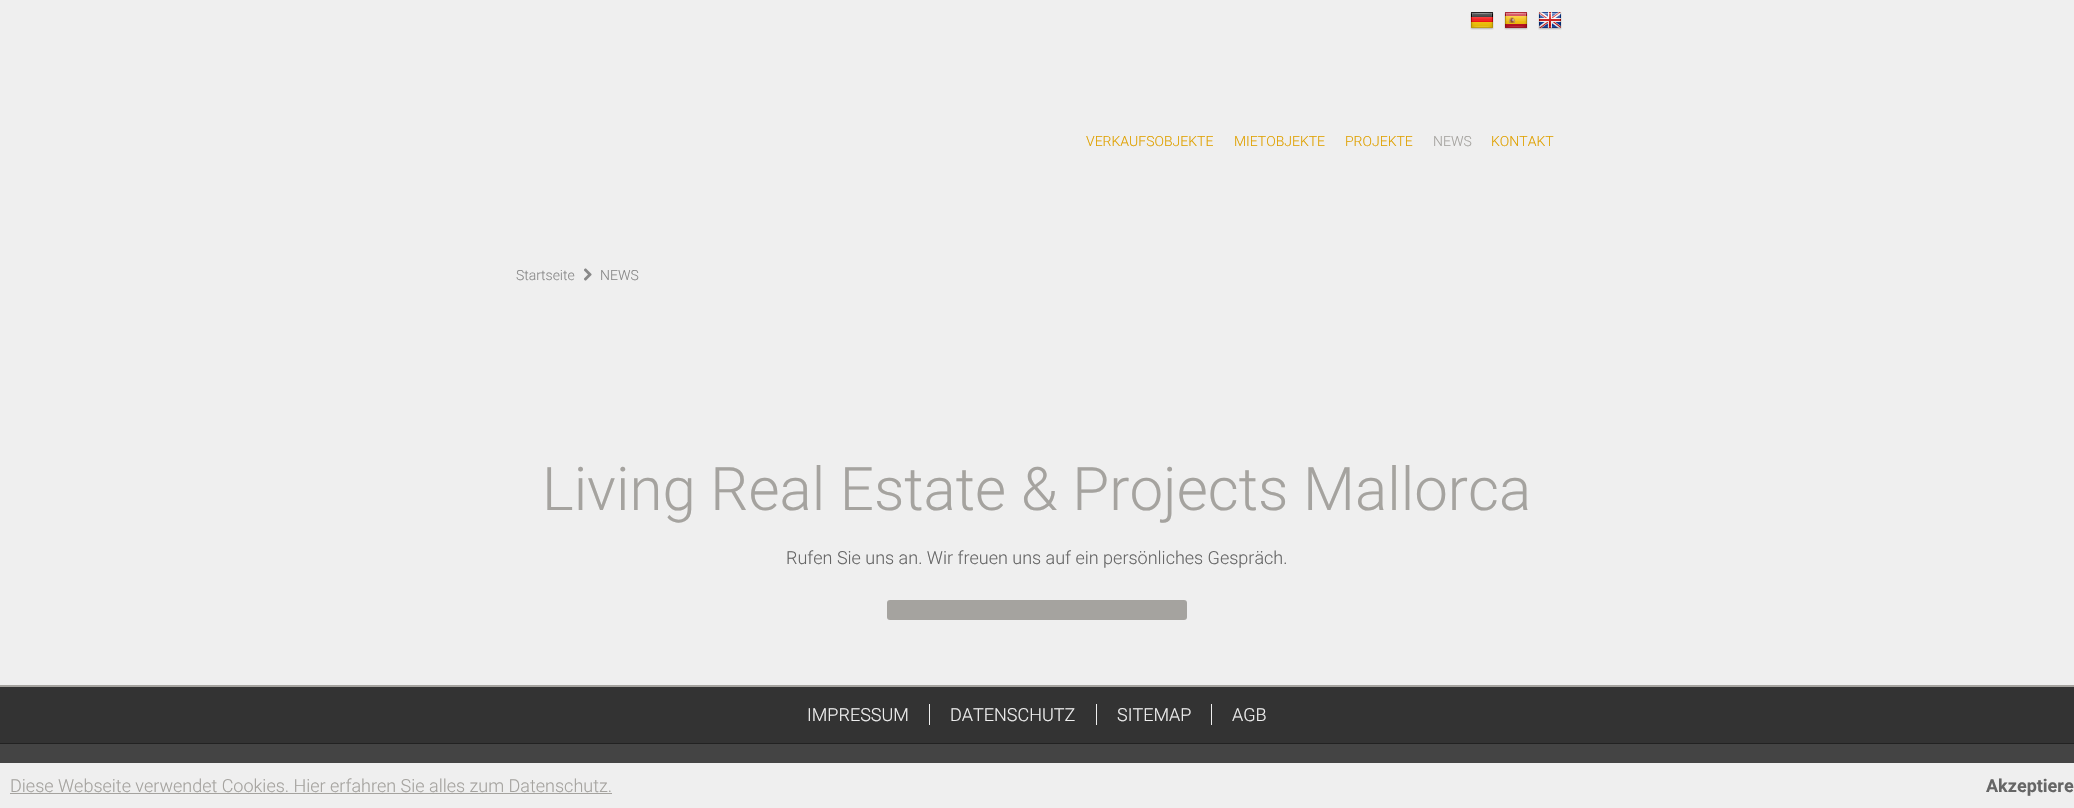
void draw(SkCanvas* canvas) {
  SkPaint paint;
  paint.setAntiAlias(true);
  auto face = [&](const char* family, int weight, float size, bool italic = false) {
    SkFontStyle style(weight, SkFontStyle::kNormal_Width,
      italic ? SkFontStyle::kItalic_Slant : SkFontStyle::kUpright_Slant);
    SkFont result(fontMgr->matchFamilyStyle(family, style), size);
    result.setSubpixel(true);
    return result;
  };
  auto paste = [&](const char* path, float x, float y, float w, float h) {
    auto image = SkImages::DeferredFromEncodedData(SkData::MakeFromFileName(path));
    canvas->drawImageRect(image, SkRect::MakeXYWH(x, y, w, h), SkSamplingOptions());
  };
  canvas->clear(0xffefefef);
  paste("img/1.png", 1470, 12, 24, 18);
  paste("img/2.png", 1504, 12, 24, 18);
  paste("img/3.png", 1538, 12, 24, 18);
  paste("img/4.png", 584, 268, 8, 13);
  paint.setColor(0xffa5a39f);
  canvas->drawRoundRect(SkRect::MakeXYWH(887, 600, 300, 20), 3, 3, paint);
  {
    const struct { float x, y, w, h; SkColor color; } items[] = {
      {0, 687, 2074, 56, 0xff333333},
      {0, 685, 2074, 2, 0xffa5a39f},
      {0, 743, 2074, 1, 0xff222222},
      {929, 704, 1, 21, 0xffefefef},
      {1096, 704, 1, 21, 0xffefefef},
      {1211, 704, 1, 21, 0xffefefef},
      {0, 744, 2074, 19, 0xff444444},
      {10, 793, 602, 1, 0xffa5a39f},
    };
    for (auto [x, y, w, h, color] : items) {
      paint.setColor(color);
      canvas->drawRect(SkRect::MakeXYWH(x, y, w, h), paint);
    }
  }
  auto f0 = face("Roboto", 300, 14);
  paint.setColor(0xffe0a100);
  {
    const struct { const char* s; float x, y; } items[] = {
      {"VERKAUFSOBJEKTE", 1086, 146},
      {"MIETOBJEKTE", 1234, 146},
      {"PROJEKTE", 1345, 146},
    };
    for (auto [s, x, y] : items) {
      canvas->drawString(s, x, y, f0, paint);
    }
  }
  paint.setColor(0xffa5a39f);
  canvas->drawString("NEWS", 1433, 146, f0, paint);
  paint.setColor(0xffe0a100);
  canvas->drawString("KONTAKT", 1491, 146, f0, paint);
  paint.setColor(0xff888888);
  canvas->drawString("Startseite", 516, 280, f0, paint);
  canvas->drawString("NEWS", 600, 280, f0, paint);
  auto f1 = face("Roboto", 300, 60);
  paint.setColor(0xffa5a39f);
  canvas->drawString("Living Real Estate & Projects Mallorca", 542, 510, f1, paint);
  auto f2 = face("Roboto", 300, 18);
  paint.setColor(0xff666666);
  canvas->drawString("Rufen Sie uns an. Wir freuen uns auf ein persönliches Gespräch.", 786, 564, f2, paint);
  paint.setColor(0xffefefef);
  {
    const struct { const char* s; float x, y; } items[] = {
      {"IMPRESSUM", 807, 721},
      {"DATENSCHUTZ", 950, 721},
      {"SITEMAP", 1117, 721},
      {"AGB", 1232, 721},
    };
    for (auto [s, x, y] : items) {
      canvas->drawString(s, x, y, f2, paint);
    }
  }
  paint.setColor(0xffa5a39f);
  canvas->drawString("Diese Webseite verwendet Cookies. Hier erfahren Sie alles zum Datenschutz.", 10, 792, f2, paint);
  auto f3 = face("Roboto", 700, 18);
  paint.setColor(0xff666666);
  canvas->drawString("Akzeptiere", 1986, 792, f3, paint);
}
